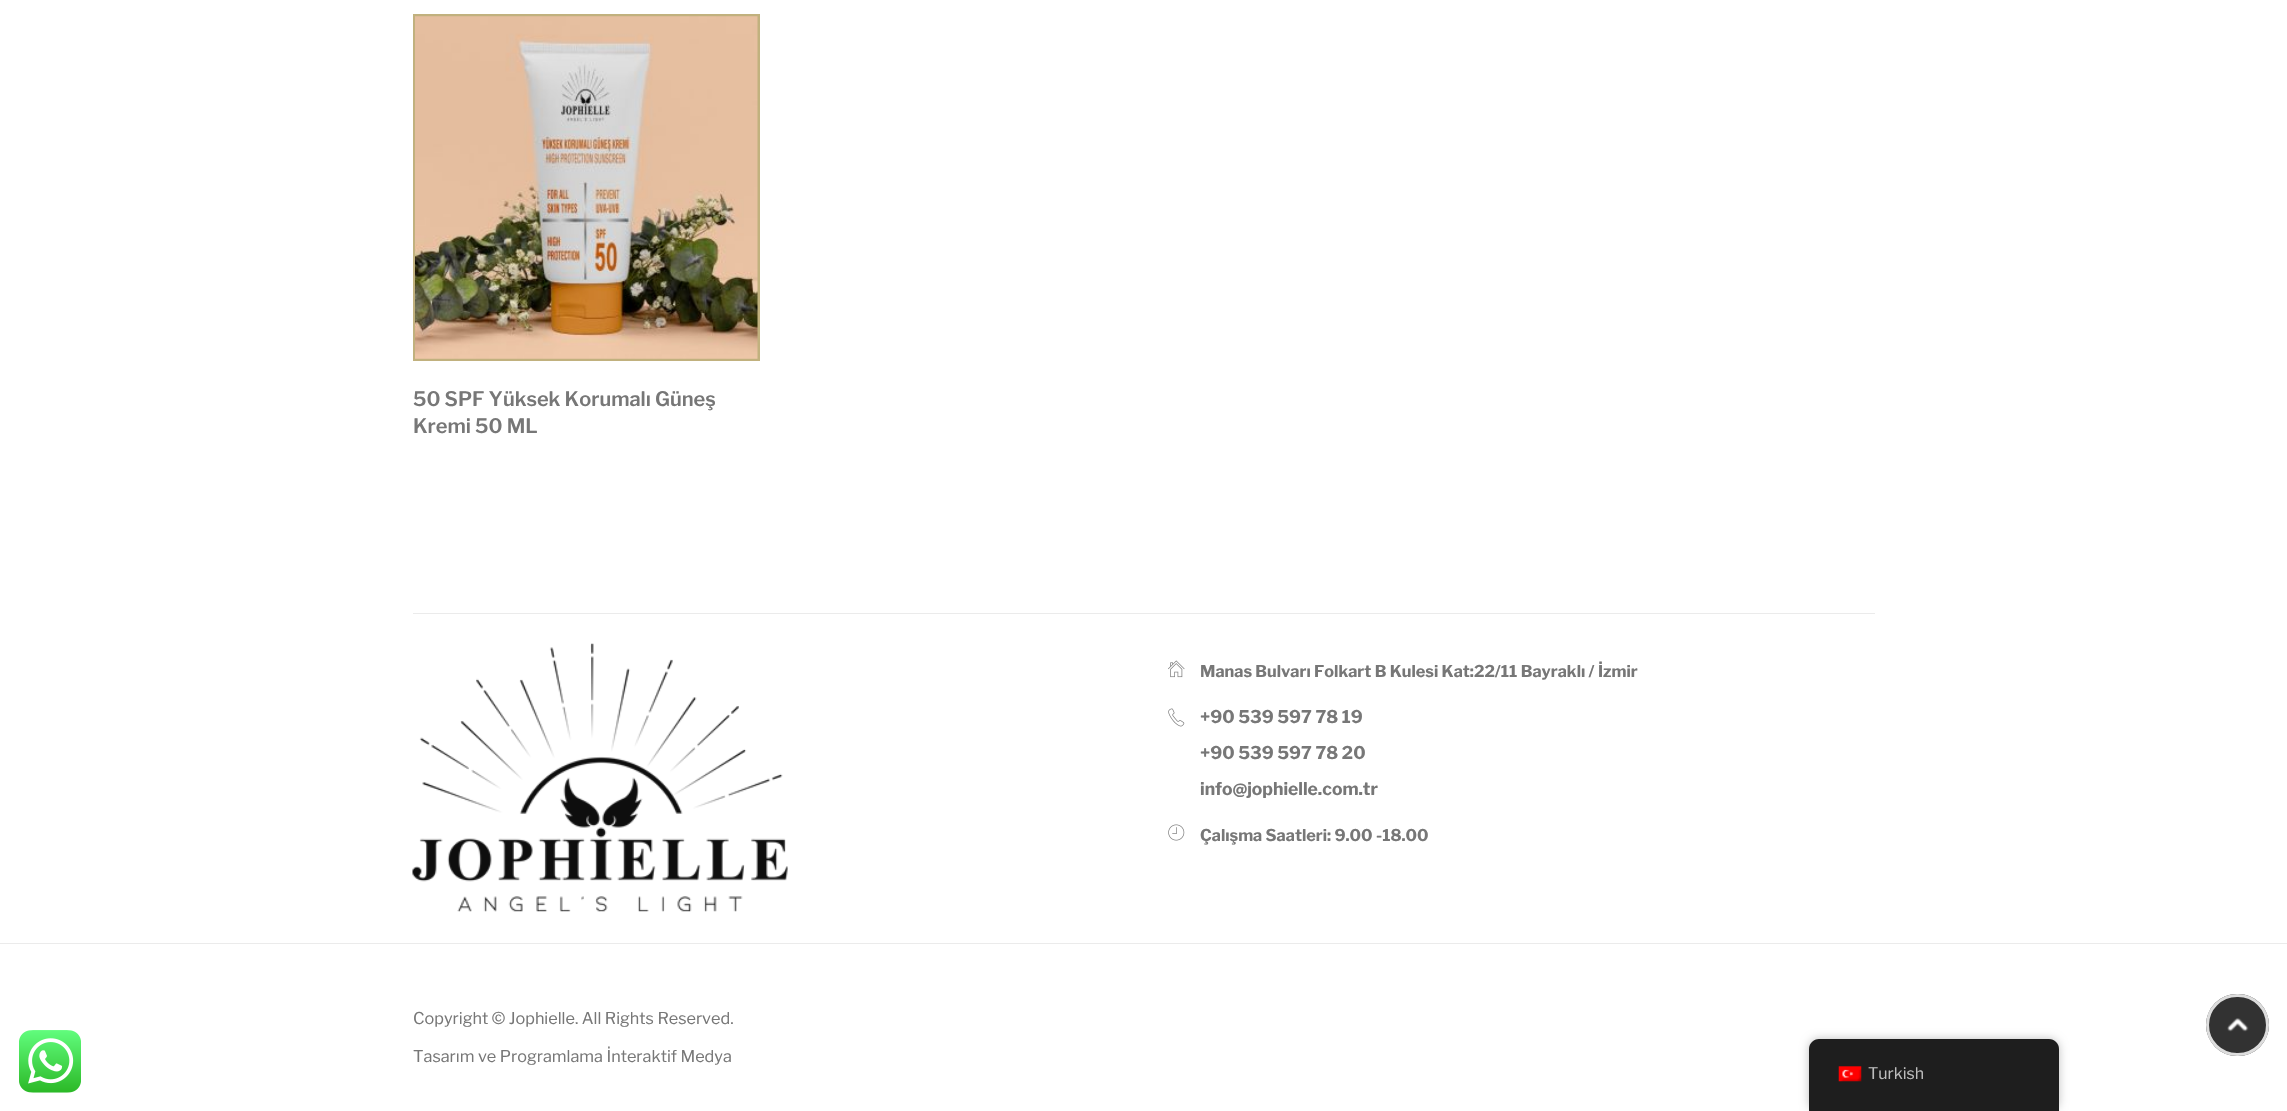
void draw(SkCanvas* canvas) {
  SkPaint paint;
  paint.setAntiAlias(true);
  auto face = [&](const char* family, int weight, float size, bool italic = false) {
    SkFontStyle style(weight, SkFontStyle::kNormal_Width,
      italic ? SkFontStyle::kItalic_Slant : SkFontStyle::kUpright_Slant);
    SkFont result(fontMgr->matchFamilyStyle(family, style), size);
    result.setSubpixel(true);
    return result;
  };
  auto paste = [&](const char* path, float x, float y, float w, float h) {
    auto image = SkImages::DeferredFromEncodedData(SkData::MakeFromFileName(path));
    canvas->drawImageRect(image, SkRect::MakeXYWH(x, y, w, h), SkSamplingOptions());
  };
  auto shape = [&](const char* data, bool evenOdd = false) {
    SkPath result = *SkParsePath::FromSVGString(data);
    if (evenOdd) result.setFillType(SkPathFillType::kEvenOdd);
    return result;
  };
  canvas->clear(0xffffffff);
  paste("img/1.png", 19, 1030, 62, 63);
  paint.setStroke(true);
  paint.setStrokeWidth(3);
  paint.setColor(0xffc1b17e);
  canvas->drawRect(SkRect::MakeXYWH(414.5f, 15.5f, 344, 344), paint);
  paste("img/2.png", 415, 16, 343, 343);
  paint.setStroke(false);
  paint.setColor(0xffebebeb);
  canvas->drawRect(SkRect::MakeXYWH(413, 613, 1462, 1), paint);
  paste("img/3.png", 412, 643, 376, 269);
  paste("img/4.png", 1168, 660, 17, 18);
  paste("img/5.png", 1168, 708, 17, 19);
  paste("img/6.png", 1168, 824, 17, 17);
  canvas->drawRect(SkRect::MakeXYWH(0, 943, 2287, 1), paint);
  paint.setColor(0x40000000);
  paint.setMaskFilter(SkMaskFilter::MakeBlur(kNormal_SkBlurStyle, 5));
  canvas->drawRoundRect(SkRect::MakeXYWH(1809, 1039, 250, 72), 10, 10, paint);
  paint.setMaskFilter(nullptr);
  paint.setColor(0xff1e1e1e);
  canvas->drawPath(shape("M1819 1039H2049C2054.5 1039 2059 1043.5 2059 1049V1111H1809V1049C1809 1043.5 1813.5 1039 1819 1039Z"), paint);
  paste("img/7.png", 1838, 1066, 24, 16);
  paint.setColor(0xff323232);
  canvas->drawRoundRect(SkRect::MakeXYWH(2206, 994, 63, 62), 31, 31, paint);
  paste("img/8.png", 2227, 1018, 22, 14);
  paint.setStroke(true);
  paint.setColor(0xffdddddd);
  canvas->drawRoundRect(SkRect::MakeXYWH(2207.5f, 995.5f, 60, 59), 29.5f, 29.5f, paint);
  auto f0 = face("Libre Franklin", 600, 20);
  paint.setStroke(false);
  paint.setColor(0xff777777);
  canvas->drawString("50 SPF Yüksek Korumalı Güneş", 413, 406, f0, paint);
  canvas->drawString("Kremi 50 ML", 413, 433, f0, paint);
  auto f1 = face("Libre Franklin", 700, 16.25f);
  canvas->drawString("Manas Bulvarı Folkart B Kulesi Kat:22/11 Bayraklı / İzmir", 1200, 677, f1, paint);
  auto f2 = face("Libre Franklin", 700, 17.5f);
  {
    const struct { const char* s; float x, y; } items[] = {
      {"+90 539 597 78 19", 1200, 723},
      {"+90 539 597 78 20", 1200, 759},
      {"info@jophielle.com.tr", 1200, 795},
    };
    for (auto [s, x, y] : items) {
      canvas->drawString(s, x, y, f2, paint);
    }
  }
  canvas->drawString("Çalışma Saatleri: 9.00 -18.00", 1200, 841, f1, paint);
  auto f3 = face("Libre Franklin", 400, 16.25f);
  canvas->drawString("Copyright © Jophielle. All Rights Reserved.", 413, 1024, f3, paint);
  canvas->drawString("Tasarım ve Programlama İnteraktif Medya", 413, 1062, f3, paint);
  auto f4 = face("Libre Franklin", 400, 16);
  paint.setColor(0xffbdbdbd);
  canvas->drawString("Turkish", 1868, 1079, f4, paint);
}
